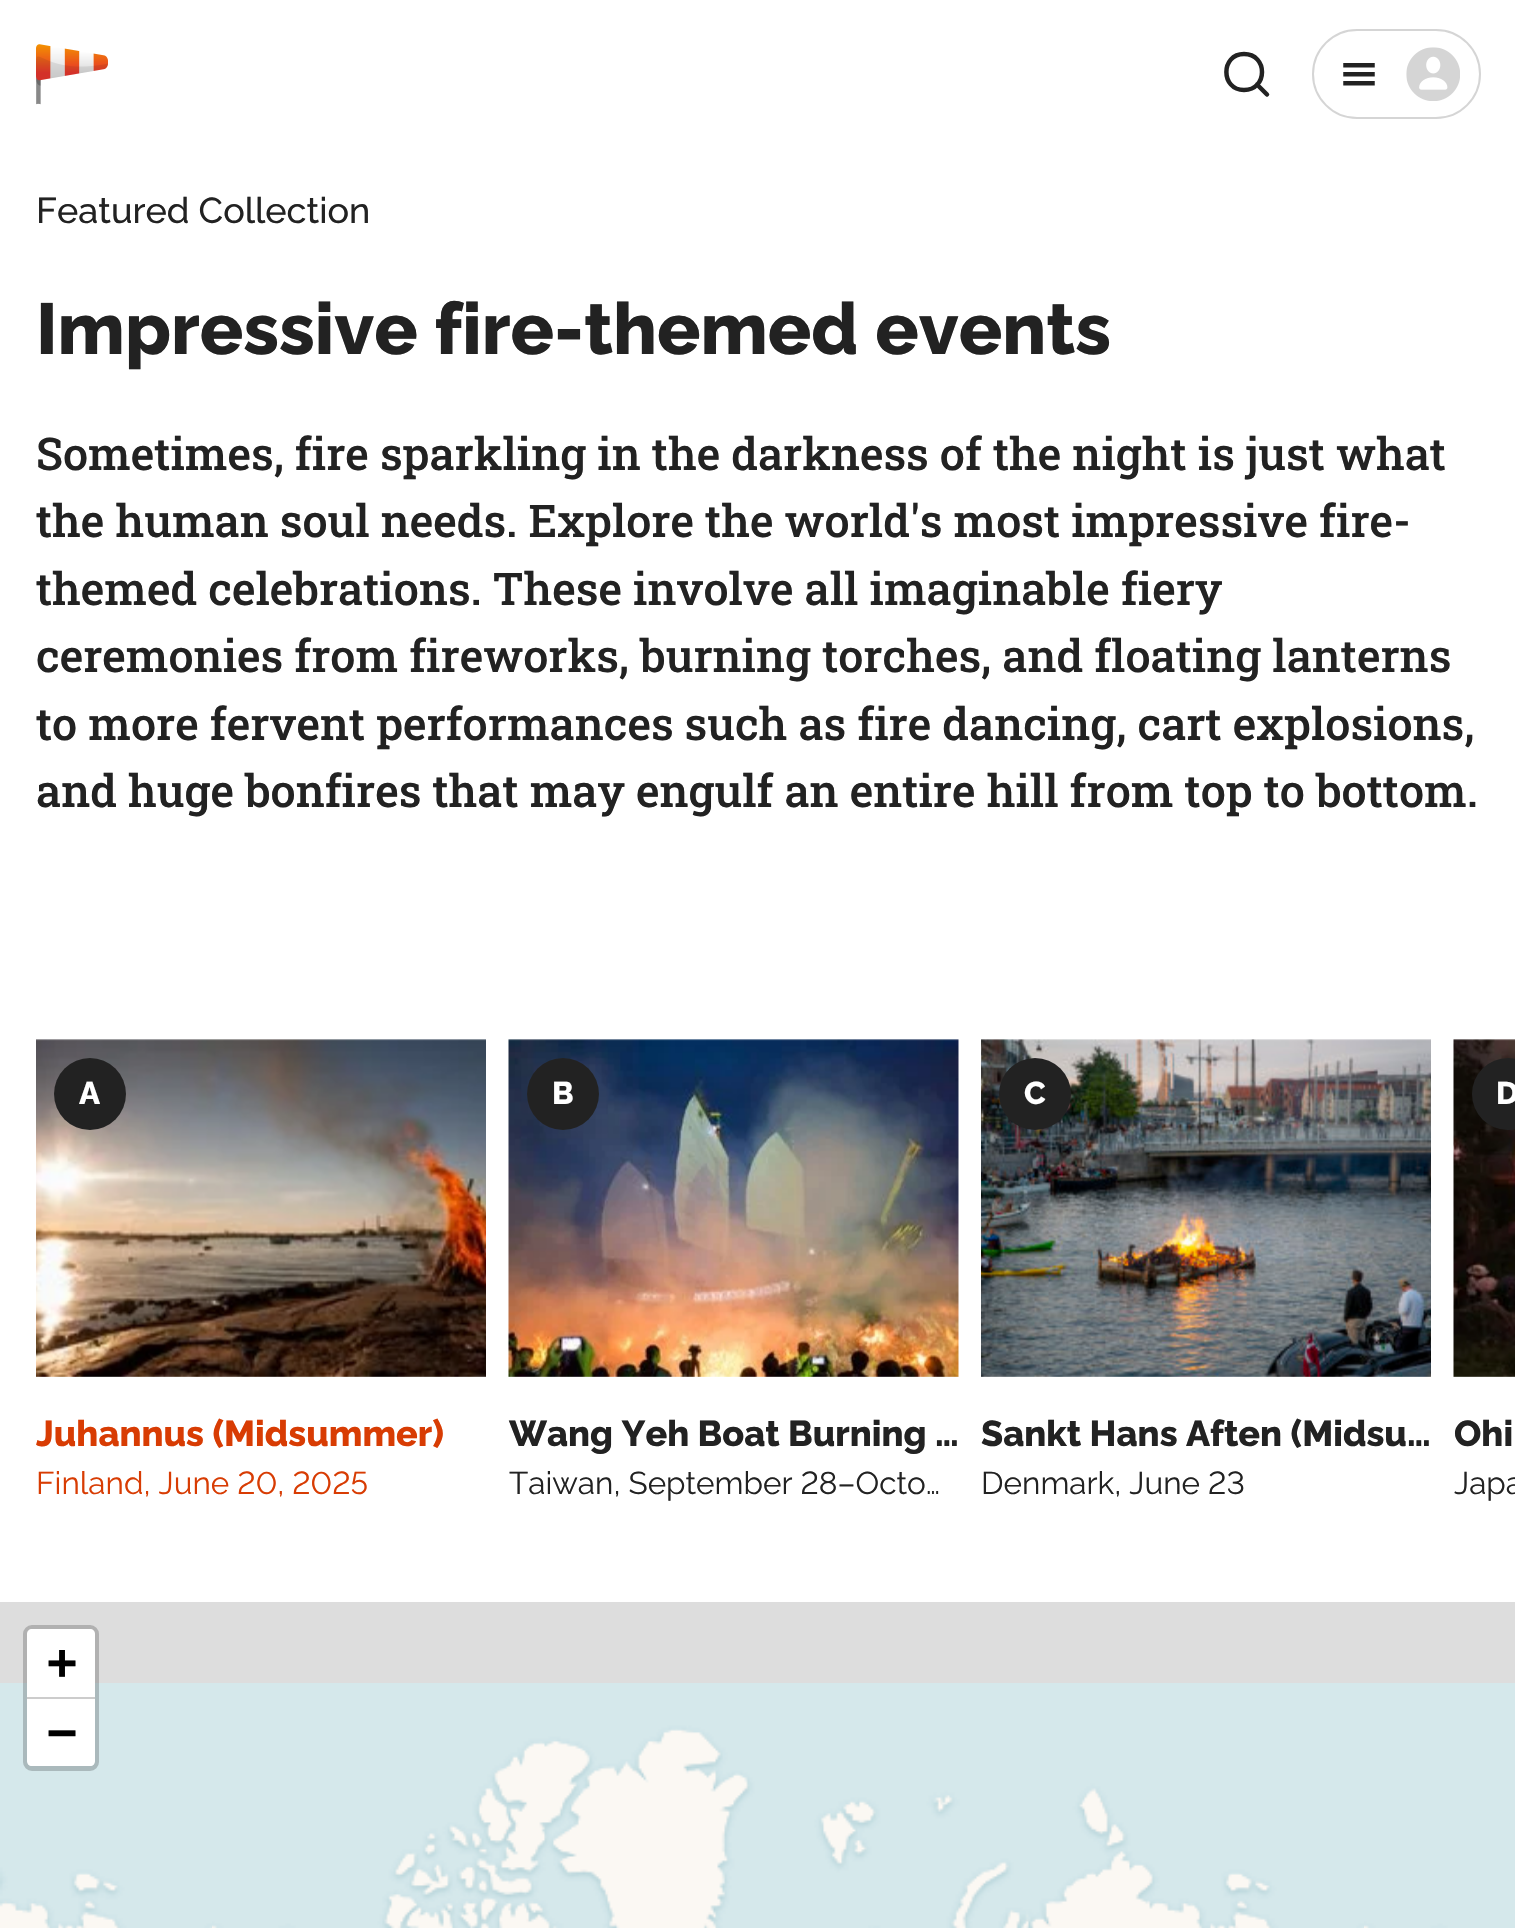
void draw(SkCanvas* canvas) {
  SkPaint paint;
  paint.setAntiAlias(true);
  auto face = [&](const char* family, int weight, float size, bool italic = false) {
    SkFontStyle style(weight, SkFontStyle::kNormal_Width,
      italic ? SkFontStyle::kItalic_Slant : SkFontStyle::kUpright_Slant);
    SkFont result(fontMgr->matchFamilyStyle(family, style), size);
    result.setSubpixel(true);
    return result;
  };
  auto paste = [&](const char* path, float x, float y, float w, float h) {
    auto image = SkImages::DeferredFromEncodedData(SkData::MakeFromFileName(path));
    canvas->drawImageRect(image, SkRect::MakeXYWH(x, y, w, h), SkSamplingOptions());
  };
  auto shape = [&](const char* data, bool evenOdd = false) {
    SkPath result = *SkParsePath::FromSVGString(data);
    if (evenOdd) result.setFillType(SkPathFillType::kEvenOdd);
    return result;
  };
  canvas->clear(0xffffffff);
  paste("img/1.png", 36, 44, 72, 61);
  paint.setStroke(true);
  paint.setStrokeWidth(4.5f);
  paint.setStrokeCap(SkPaint::kRound_Cap);
  paint.setStrokeJoin(SkPaint::kRound_Join);
  paint.setColor(0xff222222);
  canvas->drawPath(shape("M1244 90C1268 90 1268 54 1244 54C1220.5 54 1220.5 90 1244 90M1267 94.5L1257 84.5"), paint);
  paint.setStrokeWidth(2);
  paint.setStrokeCap(SkPaint::kButt_Cap);
  paint.setStrokeJoin(SkPaint::kMiter_Join);
  paint.setColor(0xffd5d5d5);
  canvas->drawRoundRect(SkRect::MakeXYWH(1313, 30, 167, 88), 44, 44, paint);
  paste("img/2.png", 1343, 63, 32, 23);
  paste("img/3.png", 1406, 47, 54, 54);
  paste("img/4.png", 36, 1039, 450, 338);
  paint.setStroke(false);
  paint.setColor(0xff222222);
  canvas->drawCircle(90, 1094, 36, paint);
  paste("img/5.png", 508, 1039, 451, 338);
  canvas->drawCircle(563, 1094, 36, paint);
  paste("img/6.png", 981, 1039, 450, 338);
  canvas->drawCircle(1035, 1094, 36, paint);
  paste("img/7.png", 1453, 1039, 62, 338);
  canvas->drawCircle(1508, 1094, 36, paint);
  paint.setColor(0xffdddddd);
  canvas->drawRect(SkRect::MakeXYWH(0, 1602, 1515, 81), paint);
  paste("img/8.png", 0, 1683, 212, 245);
  paint.setStroke(true);
  paint.setStrokeWidth(5);
  paint.setColor(0x33000000);
  canvas->drawRoundRect(SkRect::MakeXYWH(25.5f, 1627.5f, 71, 141), 6.5f, 6.5f, paint);
  paint.setStroke(false);
  paint.setColor(0xffffffff);
  canvas->drawPath(shape("M32 1629H90C93 1629 95 1631 95 1634V1699H27V1634C27 1631 29 1629 32 1629Z"), paint);
  paint.setColor(0xffcccccc);
  canvas->drawRect(SkRect::MakeXYWH(27, 1697, 68, 2), paint);
  paint.setColor(0xffffffff);
  canvas->drawPath(shape("M27 1699H95V1761C95 1764 93 1766 90 1766H32C29 1766 27 1764 27 1761Z"), paint);
  paste("img/9.png", 212, 1683, 576, 245);
  paste("img/10.png", 788, 1683, 576, 245);
  paste("img/11.png", 1364, 1683, 151, 245);
  auto f0 = face("Raleway", 500, 36);
  paint.setColor(0xff222222);
  canvas->drawString("Featured Collection", 36, 223, f0, paint);
  auto f1 = face("Raleway", 800, 72);
  canvas->drawString("Impressive fire-themed events", 36, 354, f1, paint);
  auto f2 = face("Roboto Slab", 500, 45);
  {
    const struct { const char* s; float x, y; } items[] = {
      {"Sometimes, fire sparkling in the darkness of the night is just what", 36, 470},
      {"the human soul needs. Explore the world's most impressive fire-", 36, 537},
      {"themed celebrations. These involve all imaginable fiery", 36, 605},
      {"ceremonies from fireworks, burning torches, and floating lanterns", 36, 672},
      {"to more fervent performances such as fire dancing, cart explosions,", 36, 740},
      {"and huge bonfires that may engulf an entire hill from top to bottom.", 36, 807},
    };
    for (auto [s, x, y] : items) {
      canvas->drawString(s, x, y, f2, paint);
    }
  }
  auto f3 = face("Raleway", 800, 31.5f);
  paint.setColor(0xffffffff);
  canvas->drawString("A", 79, 1104, f3, paint);
  auto f4 = face("Raleway", 800, 36);
  paint.setColor(0xffd83c03);
  canvas->drawString("Juhannus (Midsummer)", 36, 1446, f4, paint);
  auto f5 = face("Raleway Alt", 400, 31.5f);
  canvas->drawString("Finland, June 20, 2025", 36, 1494, f5, paint);
  paint.setColor(0xffffffff);
  canvas->drawString("B", 552, 1104, f3, paint);
  paint.setColor(0xff222222);
  canvas->drawString("Wang Yeh Boat Burning …", 509, 1446, f4, paint);
  canvas->drawString("Taiwan, September 28–Octo…", 509, 1494, f5, paint);
  paint.setColor(0xffffffff);
  canvas->drawString("C", 1024, 1104, f3, paint);
  paint.setColor(0xff222222);
  canvas->drawString("Sankt Hans Aften (Midsu…", 981, 1446, f4, paint);
  canvas->drawString("Denmark, June 23", 981, 1494, f5, paint);
  paint.setColor(0xffffffff);
  canvas->drawString("D", 1496, 1104, f3, paint);
  paint.setColor(0xff222222);
  canvas->drawString("Ohi", 1454, 1446, f4, paint);
  auto f6 = face("Raleway", 400, 31.5f);
  canvas->drawString("Japa", 1454, 1494, f6, paint);
  auto f7 = face("DejaVu Sans Mono", 700, 50);
  paint.setColor(0xff000000);
  canvas->drawString("+", 47, 1679, f7, paint);
  canvas->drawString("−", 47, 1749, f7, paint);
}
